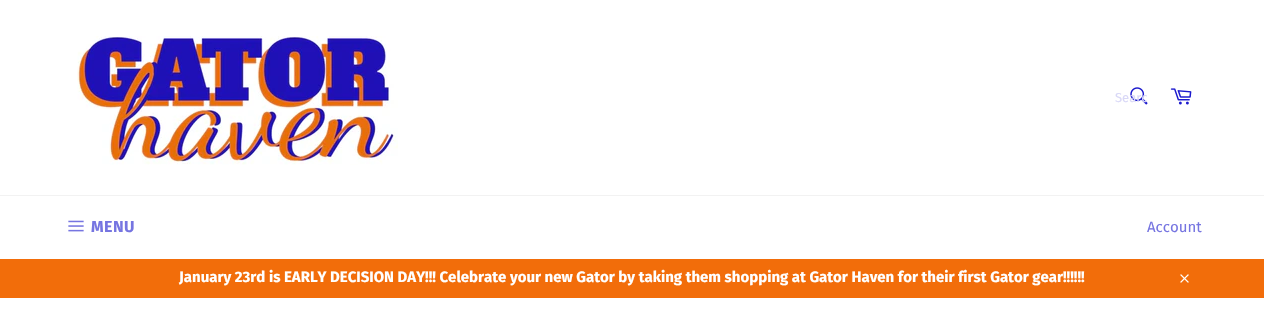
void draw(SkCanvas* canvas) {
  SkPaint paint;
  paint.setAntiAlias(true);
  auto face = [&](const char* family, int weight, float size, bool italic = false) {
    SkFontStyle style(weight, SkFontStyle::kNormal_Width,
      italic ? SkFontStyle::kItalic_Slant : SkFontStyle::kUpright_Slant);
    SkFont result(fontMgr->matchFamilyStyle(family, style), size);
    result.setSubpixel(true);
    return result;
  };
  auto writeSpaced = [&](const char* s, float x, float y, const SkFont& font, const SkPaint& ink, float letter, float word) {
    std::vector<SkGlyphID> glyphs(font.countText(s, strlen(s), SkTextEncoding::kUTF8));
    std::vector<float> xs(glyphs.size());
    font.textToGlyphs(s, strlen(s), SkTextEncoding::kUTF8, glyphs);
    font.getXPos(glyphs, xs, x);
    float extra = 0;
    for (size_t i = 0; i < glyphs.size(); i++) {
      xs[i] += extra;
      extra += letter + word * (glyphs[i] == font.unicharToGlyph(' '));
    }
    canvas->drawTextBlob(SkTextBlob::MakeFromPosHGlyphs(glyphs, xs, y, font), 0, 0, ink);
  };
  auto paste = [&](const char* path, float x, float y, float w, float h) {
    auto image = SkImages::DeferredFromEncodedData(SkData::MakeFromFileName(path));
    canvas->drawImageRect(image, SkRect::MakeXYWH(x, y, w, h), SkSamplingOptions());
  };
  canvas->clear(0xffffffff);
  paste("img/1.png", 77, 36, 321, 129);
  paste("img/2.png", 1130, 87, 18, 18);
  paste("img/3.png", 1170, 88, 22, 17);
  paint.setColor(0xfff2f2f2);
  canvas->drawRect(SkRect::MakeXYWH(0, 195, 1264, 1), paint);
  paste("img/4.png", 68, 220, 16, 12);
  paint.setColor(0xfff26d0a);
  canvas->drawRect(SkRect::MakeXYWH(0, 259, 1264, 39), paint);
  paste("img/5.png", 1180, 274, 9, 9);
  auto f0 = face("Fira Sans", 400, 13);
  paint.setColor(0xffd9d8f7);
  canvas->drawString("Searc", 1115, 102, f0, paint);
  auto f1 = face("Fira Sans", 700, 16);
  paint.setColor(0xff7675e1);
  writeSpaced("MENU", 91, 232, f1, paint, 0.5f, 0);
  auto f2 = face("Fira Sans", 400, 15);
  canvas->drawString("Account", 1147, 232, f2, paint);
  auto f3 = face("Fira Sans", 700, 15);
  paint.setColor(0xffffffff);
  canvas->drawString("January 23rd is EARLY DECISION DAY!!! Celebrate your new Gator by taking them shopping at Gator Haven for their first Gator gear!!!!!!", 179, 282, f3, paint);
}
